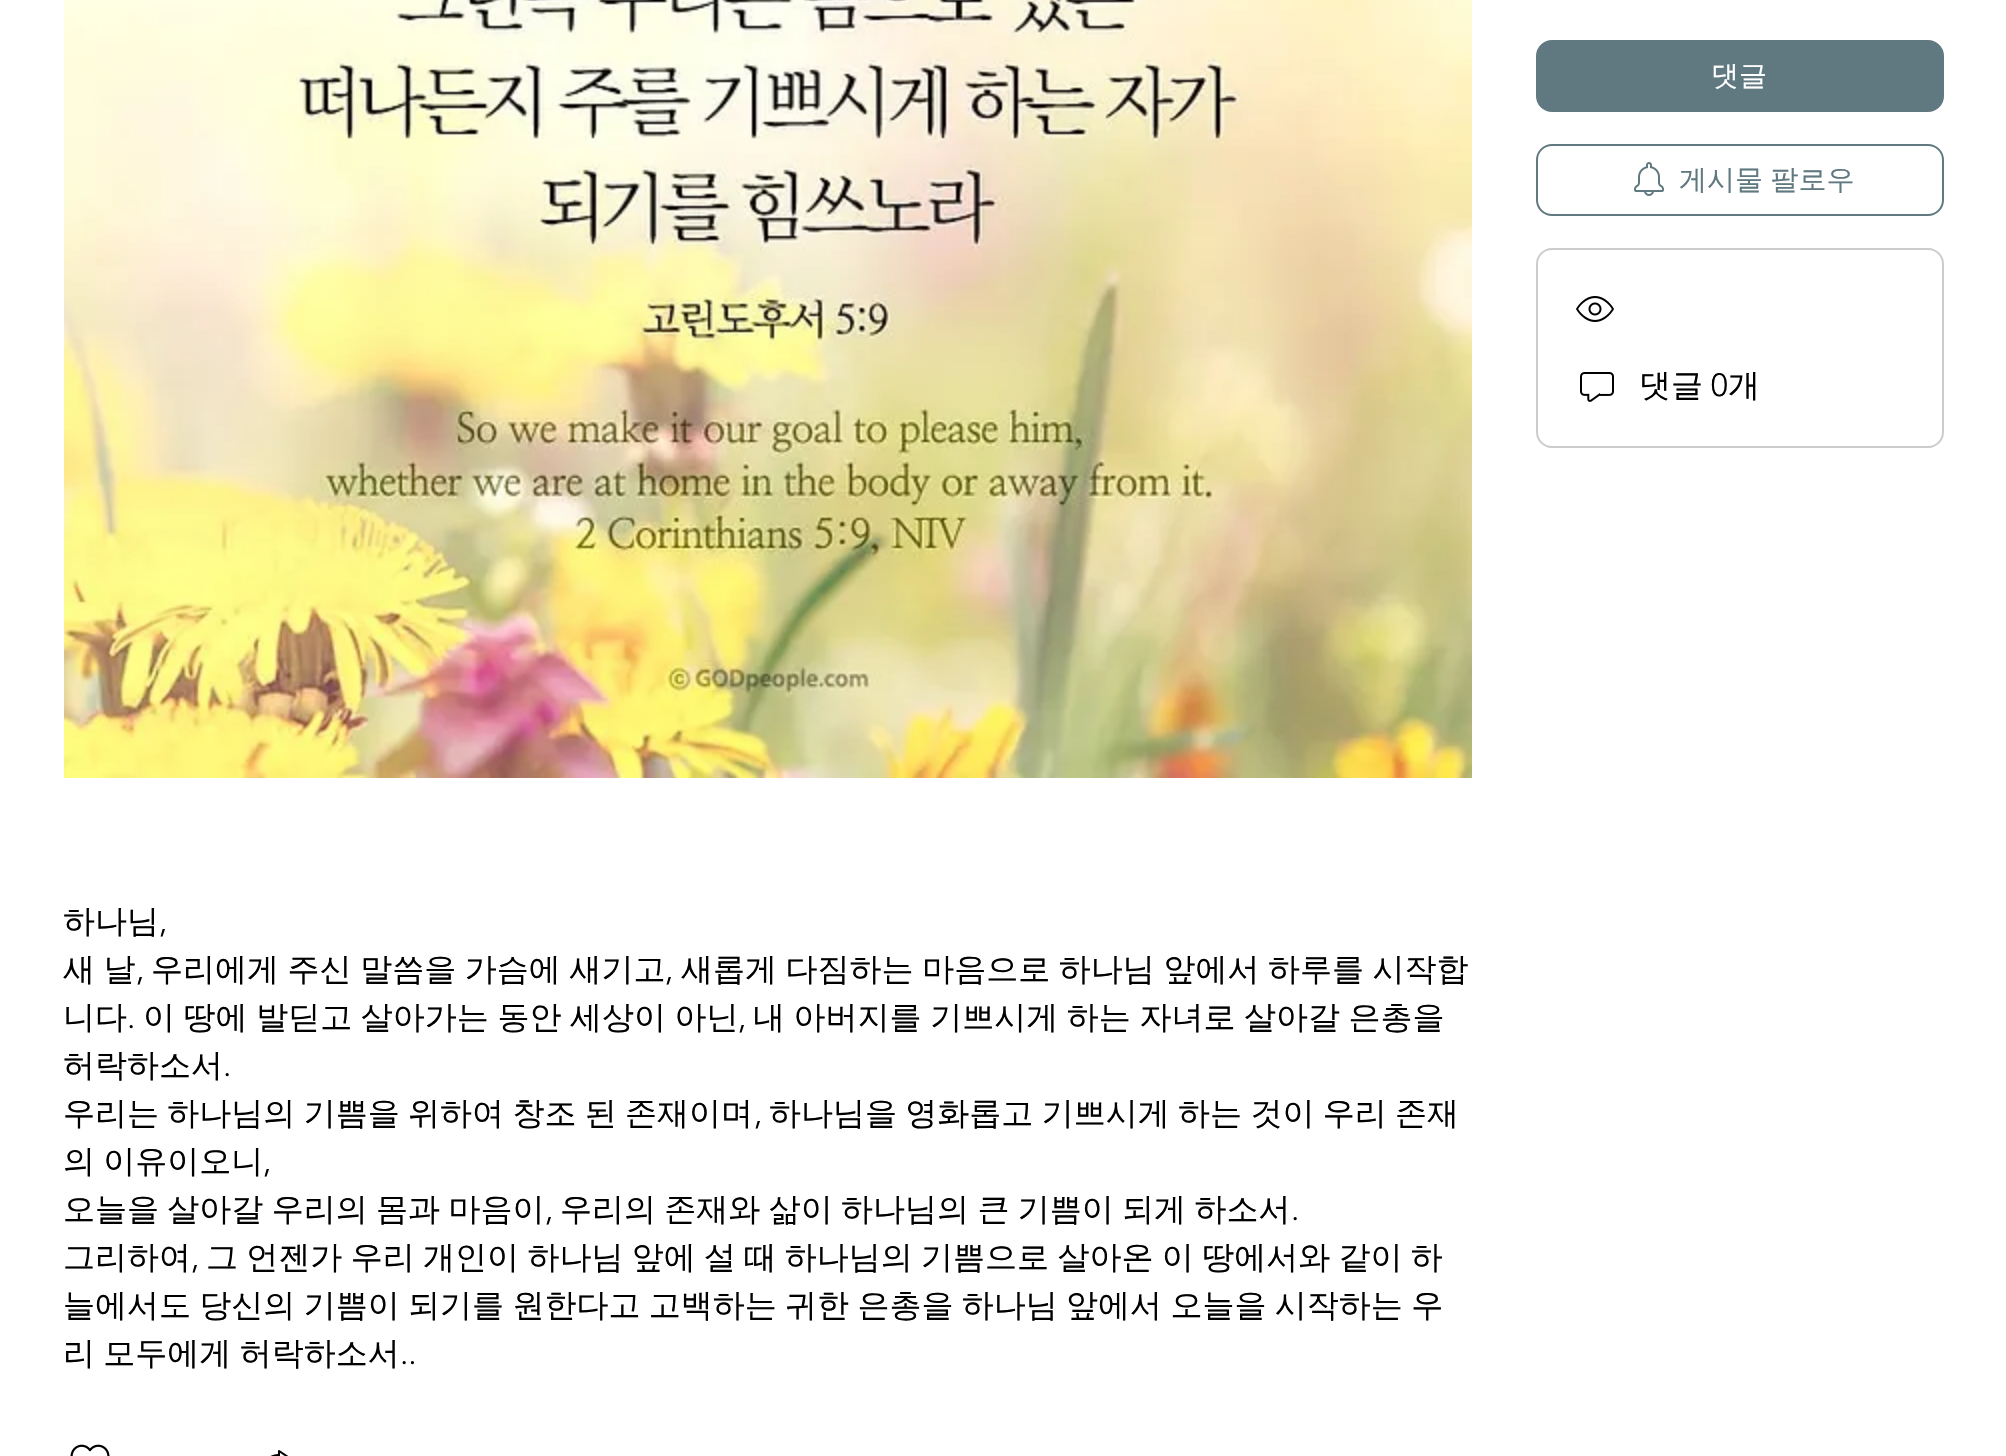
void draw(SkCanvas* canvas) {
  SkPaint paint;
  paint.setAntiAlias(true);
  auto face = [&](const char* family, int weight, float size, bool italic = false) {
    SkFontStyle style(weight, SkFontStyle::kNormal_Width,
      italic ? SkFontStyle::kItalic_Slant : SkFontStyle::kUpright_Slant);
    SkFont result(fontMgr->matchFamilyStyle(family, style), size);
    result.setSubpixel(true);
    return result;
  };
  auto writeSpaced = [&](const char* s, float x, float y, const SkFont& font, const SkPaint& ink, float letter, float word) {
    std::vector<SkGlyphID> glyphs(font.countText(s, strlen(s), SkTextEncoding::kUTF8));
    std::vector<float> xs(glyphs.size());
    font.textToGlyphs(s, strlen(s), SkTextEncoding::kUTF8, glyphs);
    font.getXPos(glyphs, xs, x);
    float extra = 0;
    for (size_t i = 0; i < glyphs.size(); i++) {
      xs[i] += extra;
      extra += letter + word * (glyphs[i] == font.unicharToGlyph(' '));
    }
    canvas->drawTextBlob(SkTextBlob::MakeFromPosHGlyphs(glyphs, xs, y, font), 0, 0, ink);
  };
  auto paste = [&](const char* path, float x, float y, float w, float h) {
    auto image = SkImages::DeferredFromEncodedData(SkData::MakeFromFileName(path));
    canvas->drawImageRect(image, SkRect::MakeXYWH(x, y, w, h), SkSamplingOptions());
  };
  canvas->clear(0xffffffff);
  paint.setColor(0xff607980);
  canvas->drawRoundRect(SkRect::MakeXYWH(1536, 40, 408, 72), 16, 16, paint);
  paint.setStroke(true);
  paint.setStrokeWidth(2);
  canvas->drawRoundRect(SkRect::MakeXYWH(1537, 145, 406, 70), 15, 15, paint);
  paste("img/1.png", 1634, 162, 30, 34);
  paint.setColor(0xffcccccc);
  canvas->drawRoundRect(SkRect::MakeXYWH(1537, 249, 406, 198), 15, 15, paint);
  paste("img/2.png", 1576, 296, 38, 26);
  paste("img/3.png", 1580, 372, 34, 30);
  paste("img/4.png", 64, 0, 1408, 778);
  paste("img/5.png", 70, 1444, 40, 12);
  paste("img/6.png", 270, 1450, 19, 6);
  auto f0 = face("WenQuanYi Zen Hei", 500, 28);
  paint.setStroke(false);
  paint.setColor(0xffffffff);
  canvas->drawString("댓글", 1711, 85, f0, paint);
  paint.setColor(0xff607980);
  writeSpaced("게시물 팔로우", 1679, 189, f0, paint, 0, -1);
  auto f1 = face("WenQuanYi Zen Hei", 500, 32);
  paint.setColor(0xff000000);
  canvas->drawString("댓글", 1639, 396, f1, paint);
  auto f2 = face("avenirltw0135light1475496", 300, 32);
  canvas->drawString("0", 1711, 396, f2, paint);
  canvas->drawString("개", 1728, 396, f1, paint);
  canvas->drawString("하나님", 63, 932, f1, paint);
  canvas->drawString(",", 159, 932, f2, paint);
  writeSpaced("새 날", 63, 980, f1, paint, 0, -1);
  canvas->drawString(",", 136, 980, f2, paint);
  writeSpaced("우리에게 주신 말씀을 가슴에 새기고", 151, 980, f1, paint, 0, -1);
  canvas->drawString(",", 665, 980, f2, paint);
  writeSpaced("새롭게 다짐하는 마음으로 하나님 앞에서 하루를 시작합", 681, 980, f1, paint, 0, -1);
  canvas->drawString("니다", 63, 1028, f1, paint);
  canvas->drawString(".", 127, 1028, f2, paint);
  writeSpaced("이 땅에 발딛고 살아가는 동안 세상이 아닌", 143, 1028, f1, paint, 0, -1);
  canvas->drawString(",", 738, 1028, f2, paint);
  writeSpaced("내 아버지를 기쁘시게 하는 자녀로 살아갈 은총을", 753, 1028, f1, paint, 0, -1);
  canvas->drawString("허락하소서", 63, 1076, f1, paint);
  canvas->drawString(".", 223, 1076, f2, paint);
  writeSpaced("우리는 하나님의 기쁨을 위하여 창조 된 존재이며", 63, 1124, f1, paint, 0, -1.25f);
  canvas->drawString(",", 754, 1124, f2, paint);
  writeSpaced("하나님을 영화롭고 기쁘시게 하는 것이 우리 존재", 769, 1124, f1, paint, 0, -1.25f);
  writeSpaced("의 이유이오니", 63, 1172, f1, paint, 0, -1.25f);
  canvas->drawString(",", 263, 1172, f2, paint);
  writeSpaced("오늘을 살아갈 우리의 몸과 마음이", 63, 1220, f1, paint, 0, -1.25f);
  canvas->drawString(",", 545, 1220, f2, paint);
  writeSpaced("우리의 존재와 삶이 하나님의 큰 기쁨이 되게 하소서", 560, 1220, f1, paint, 0, -1.25f);
  canvas->drawString(".", 1291, 1220, f2, paint);
  canvas->drawString("그리하여", 63, 1268, f1, paint);
  canvas->drawString(",", 191, 1268, f2, paint);
  {
    const struct { const char* s; float x, y; } items[] = {
      {"그 언젠가 우리 개인이 하나님 앞에 설 때 하나님의 기쁨으로 살아온 이 땅에서와 같이 하", 206, 1268},
      {"늘에서도 당신의 기쁨이 되기를 원한다고 고백하는 귀한 은총을 하나님 앞에서 오늘을 시작하는 우", 63, 1316},
      {"리 모두에게 허락하소서", 63, 1364},
    };
    for (auto [s, x, y] : items) {
      writeSpaced(s, x, y, f1, paint, 0, -1.25f);
    }
  }
  canvas->drawString("..", 400, 1364, f2, paint);
}
